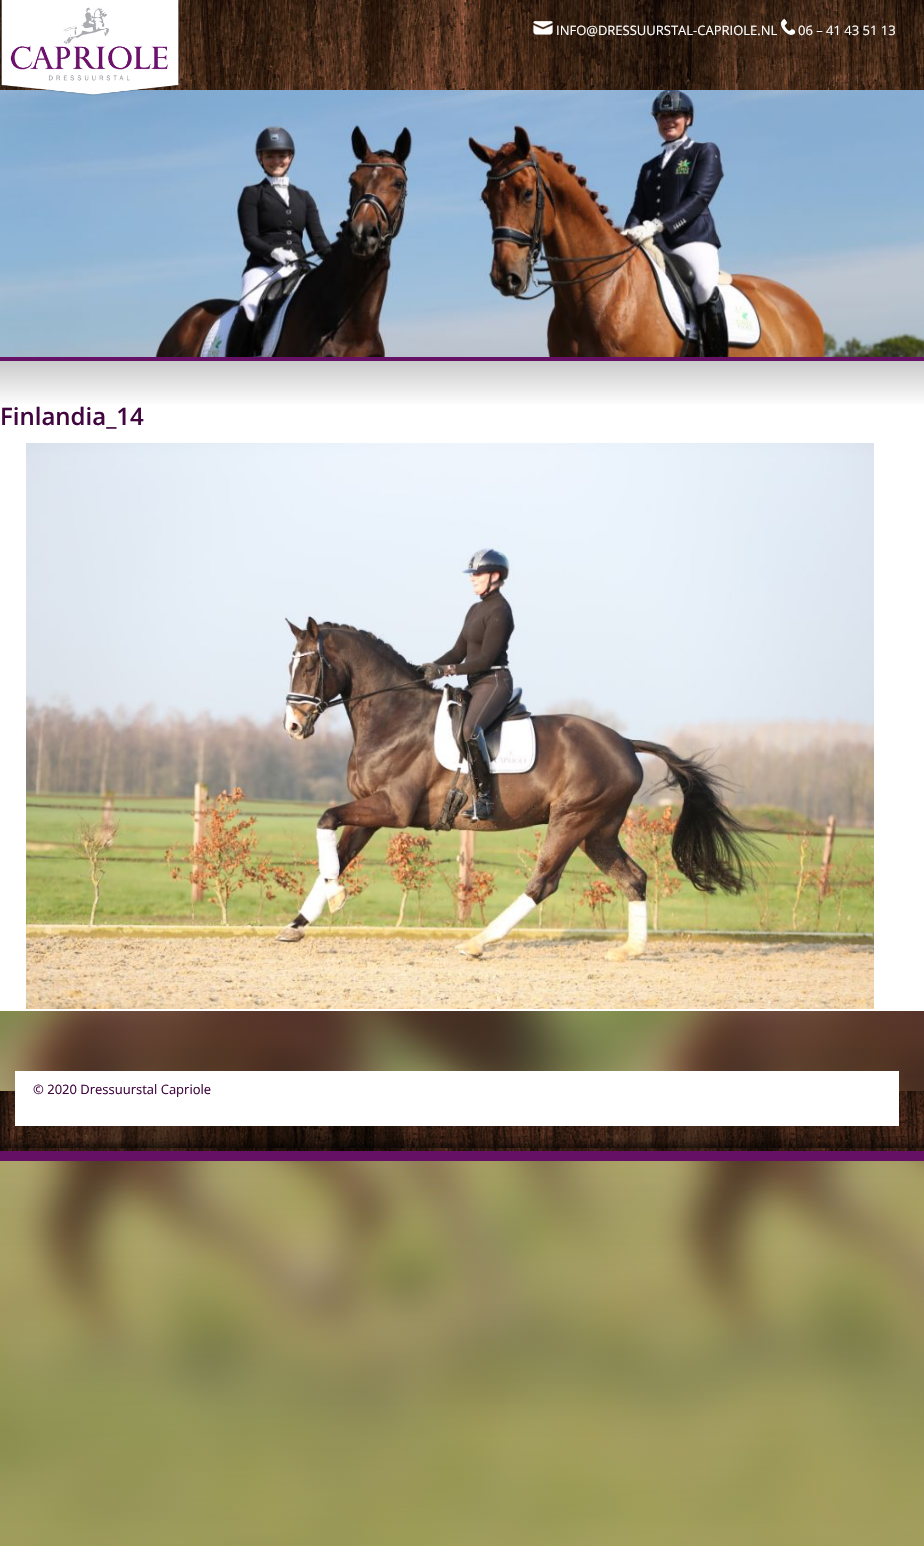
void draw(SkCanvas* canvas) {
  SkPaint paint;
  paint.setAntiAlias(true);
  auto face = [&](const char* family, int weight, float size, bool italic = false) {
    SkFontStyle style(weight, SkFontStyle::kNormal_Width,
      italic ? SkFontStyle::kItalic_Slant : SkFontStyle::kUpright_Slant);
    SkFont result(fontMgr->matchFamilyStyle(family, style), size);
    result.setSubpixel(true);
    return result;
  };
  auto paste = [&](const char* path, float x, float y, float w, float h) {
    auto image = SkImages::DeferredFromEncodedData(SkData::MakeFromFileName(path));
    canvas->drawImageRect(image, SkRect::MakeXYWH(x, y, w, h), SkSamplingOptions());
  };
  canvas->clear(0xffffffff);
  paste("img/1.png", 0, 1011, 924, 535);
  paste("img/2.png", 0, 0, 924, 90);
  paste("img/6.png", 0, 90, 924, 267);
  paste("img/3.png", 1, 0, 179, 96);
  paste("img/4.png", 533, 21, 20, 14);
  paste("img/5.png", 781, 19, 14, 16);
  {
    const SkColor colors[] = {0xffcacaca, 0xffffffff};
    const float stops[] = {0, 0.07f};
    const SkPoint ends[] = {{462, 361}, {462, 1011}};
    paint.setShader(SkGradientShader::MakeLinear(ends, colors, stops, 2, SkTileMode::kClamp));
    paint.setAlpha(255);
  }
  canvas->drawRect(SkRect::MakeXYWH(0, 361, 924, 43), paint);
  paint.setShader(nullptr);
  paint.setColor(0xff661166);
  canvas->drawRect(SkRect::MakeXYWH(0, 357, 924, 4), paint);
  paste("img/7.png", 26, 443, 848, 566);
  paste("img/8.png", 0, 1091, 924, 60);
  paint.setColor(0xff651064);
  canvas->drawRect(SkRect::MakeXYWH(0, 1151, 924, 10), paint);
  paint.setColor(0xffffffff);
  canvas->drawRect(SkRect::MakeXYWH(15, 1071, 884, 55), paint);
  auto f0 = face("Open Sans", 400, 13);
  canvas->drawString("INFO@DRESSUURSTAL-CAPRIOLE.NL", 556, 35, f0, paint);
  canvas->drawString("06 – 41 43 51 13", 798, 35, f0, paint);
  auto f1 = face("Open Sans", 600, 24);
  paint.setColor(0xff410640);
  canvas->drawString("Finlandia_14", 0, 425, f1, paint);
  canvas->drawString("© 2020 Dressuurstal Capriole", 33, 1094, f0, paint);
}
